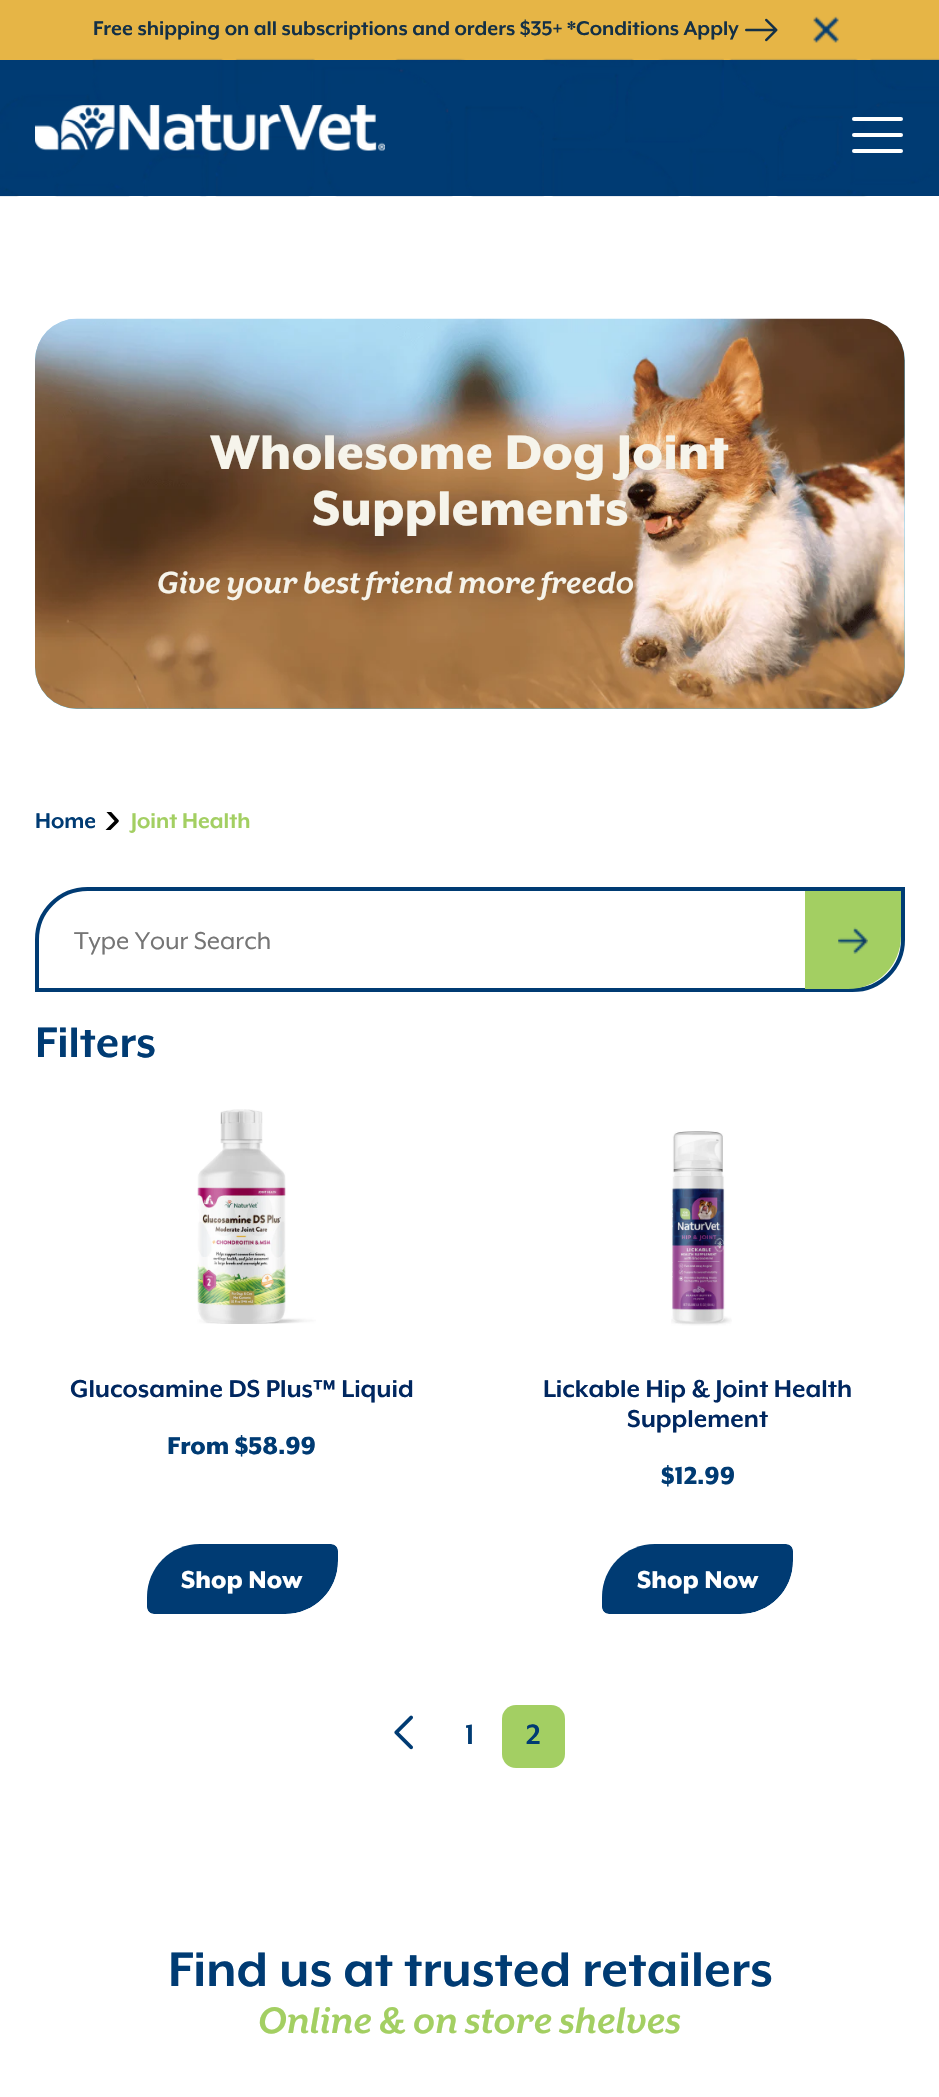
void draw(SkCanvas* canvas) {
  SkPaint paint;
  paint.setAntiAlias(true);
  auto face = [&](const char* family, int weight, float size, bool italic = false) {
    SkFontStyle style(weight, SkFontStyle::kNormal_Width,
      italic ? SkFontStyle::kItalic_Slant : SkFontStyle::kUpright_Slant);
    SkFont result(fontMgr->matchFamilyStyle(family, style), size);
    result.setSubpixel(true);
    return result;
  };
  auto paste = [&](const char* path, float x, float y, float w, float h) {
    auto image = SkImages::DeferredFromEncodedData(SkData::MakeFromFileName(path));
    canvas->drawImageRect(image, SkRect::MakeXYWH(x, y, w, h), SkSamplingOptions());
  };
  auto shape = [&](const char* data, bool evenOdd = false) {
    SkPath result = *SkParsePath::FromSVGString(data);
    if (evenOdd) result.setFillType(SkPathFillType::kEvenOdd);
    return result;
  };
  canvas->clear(0xffffffff);
  paint.setColor(0xffe6b546);
  canvas->drawRect(SkRect::MakeXYWH(0, 0, 939, 60), paint);
  paste("img/1.png", 745, 18, 33, 24);
  paste("img/2.png", 813, 16, 26, 27);
  paint.setColor(0xff003b73);
  canvas->drawRect(SkRect::MakeXYWH(0, 60, 939, 136), paint);
  paste("img/3.png", 0, 58, 939, 139);
  paste("img/4.png", 35, 105, 350, 46);
  paint.setColor(0xffffffff);
  canvas->drawRoundRect(SkRect::MakeXYWH(852, 117, 51, 4), 2, 2, paint);
  canvas->drawRoundRect(SkRect::MakeXYWH(852, 133, 51, 4), 2, 2, paint);
  canvas->drawRoundRect(SkRect::MakeXYWH(852, 149, 51, 4), 2, 2, paint);
  {
    const SkColor colors[] = {0xff43b6e6, 0xff7dd9ff};
    const float stops[] = {0, 1};
    const SkPoint ends[] = {{470, 799}, {470, 319}};
    paint.setShader(SkGradientShader::MakeLinear(ends, colors, stops, 2, SkTileMode::kClamp));
    paint.setAlpha(255);
  }
  canvas->drawRoundRect(SkRect::MakeXYWH(35, 319, 870, 390), 42, 42, paint);
  paste("img/5.png", 35, 318, 870, 391);
  canvas->save();
  canvas->clipRect(SkRect::MakeXYWH(103, 812, 18, 18));
  paint.setStroke(true);
  paint.setStrokeWidth(3.5f);
  paint.setStrokeCap(SkPaint::kRound_Cap);
  paint.setStrokeJoin(SkPaint::kRound_Join);
  paint.setShader(nullptr);
  paint.setColor(0xff000000);
  canvas->drawPath(shape("M107 831L117 821L107 810"), paint);
  canvas->restore();
  paint.setStrokeWidth(4);
  paint.setStrokeCap(SkPaint::kButt_Cap);
  paint.setStrokeJoin(SkPaint::kMiter_Join);
  paint.setColor(0xff003b73);
  canvas->drawPath(shape("M87.5 889H903V939.5C903 967.5 880.5 990 852.5 990H37V939.5C37 911.5 59.5 889 87.5 889Z"), paint);
  paint.setStroke(false);
  paint.setColor(0xffa3cf62);
  canvas->drawPath(shape("M805 891H901V936C901 965.5 877.5 989 848 989H805Z"), paint);
  paste("img/6.png", 838, 927, 30, 27);
  paste("img/7.png", 197, 1109, 119, 215);
  canvas->save();
  canvas->clipPath(shape("M200 1544H331C335 1544 338 1547 338 1551V1561C338 1590.5 314.5 1614 285 1614H154C150 1614 147 1611 147 1607V1597C147 1567.5 170.5 1544 200 1544Z"), true);
  paint.setColor(0xff003b73);
  canvas->drawPath(shape("M147 1544H331C335 1544 338 1547 338 1551V1561C338 1590.5 314.5 1614 285 1614H154C150 1614 147 1611 147 1607Z"), paint);
  canvas->restore();
  paste("img/8.png", 671, 1131, 61, 195);
  canvas->save();
  canvas->clipPath(shape("M655 1544H786C790 1544 793 1547 793 1551V1561C793 1590.5 769.5 1614 740 1614H609C605 1614 602 1611 602 1607V1597C602 1567.5 625.5 1544 655 1544Z"), true);
  canvas->drawPath(shape("M602 1544H786C790 1544 793 1547 793 1551V1561C793 1590.5 769.5 1614 740 1614H609C605 1614 602 1611 602 1607Z"), paint);
  canvas->restore();
  paste("img/9.png", 394, 1715, 19, 35);
  paint.setColor(0xffa3cf63);
  canvas->drawRoundRect(SkRect::MakeXYWH(502, 1705, 63, 63), 14, 14, paint);
  auto f0 = face("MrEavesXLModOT", 700, 22.75f);
  paint.setColor(0xff143046);
  canvas->drawString("Free shipping on all subscriptions and orders $35+ *Conditions Apply", 93, 35, f0, paint);
  auto f1 = face("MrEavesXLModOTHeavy", 900, 56);
  paint.setColor(0xfff6f4eb);
  canvas->drawString("Wholesome Dog Joint", 210, 469, f1, paint);
  canvas->drawString("Supplements", 312, 525, f1, paint);
  auto f2 = face("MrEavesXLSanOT", 700, 35, true);
  canvas->drawString("Give your best friend more freedo", 157, 593, f2, paint);
  auto f3 = face("MrEavesXLModOT", 700, 24.5f);
  paint.setColor(0xff003b73);
  canvas->drawString("Home", 35, 828, f3, paint);
  paint.setColor(0xffa3cf62);
  canvas->drawString("Joint Health", 131, 828, f3, paint);
  auto f4 = face("MrEavesXLModOT", 400, 28);
  paint.setColor(0xff757575);
  canvas->drawString("Type Your Search", 74, 949, f4, paint);
  auto f5 = face("MrEavesXLModOT", 700, 49);
  paint.setColor(0xff003b73);
  canvas->drawString("Filters", 35, 1057, f5, paint);
  auto f6 = face("MrEavesXLModOT", 700, 28);
  paint.setColor(0xff002760);
  canvas->drawString("Glucosamine DS Plus™ Liquid", 70, 1397, f6, paint);
  auto f7 = face("MrEavesXLModOTHeavy", 900, 28);
  paint.setColor(0xff003b73);
  canvas->drawString("From $58.99", 167, 1454, f7, paint);
  paint.setColor(0xffffffff);
  canvas->drawString("Shop Now", 181, 1588, f7, paint);
  paint.setColor(0xff002760);
  canvas->drawString("Lickable Hip & Joint Health", 543, 1397, f6, paint);
  canvas->drawString("Supplement", 627, 1427, f6, paint);
  paint.setColor(0xff003b73);
  canvas->drawString("$12.99", 661, 1484, f7, paint);
  paint.setColor(0xffffffff);
  canvas->drawString("Shop Now", 637, 1588, f7, paint);
  auto f8 = face("MrEavesXLModOT", 700, 32);
  paint.setColor(0xff003b73);
  canvas->drawString("1", 465, 1744, f8, paint);
  canvas->drawString("2", 526, 1744, f8, paint);
  auto f9 = face("MrEavesXLModOT", 700, 56);
  canvas->drawString("Find us at trusted retailers", 168, 1986, f9, paint);
  auto f10 = face("MrEavesXLSanOT", 700, 42, true);
  paint.setColor(0xffa3cf62);
  canvas->drawString("Online & on store shelves", 258, 2033, f10, paint);
}
